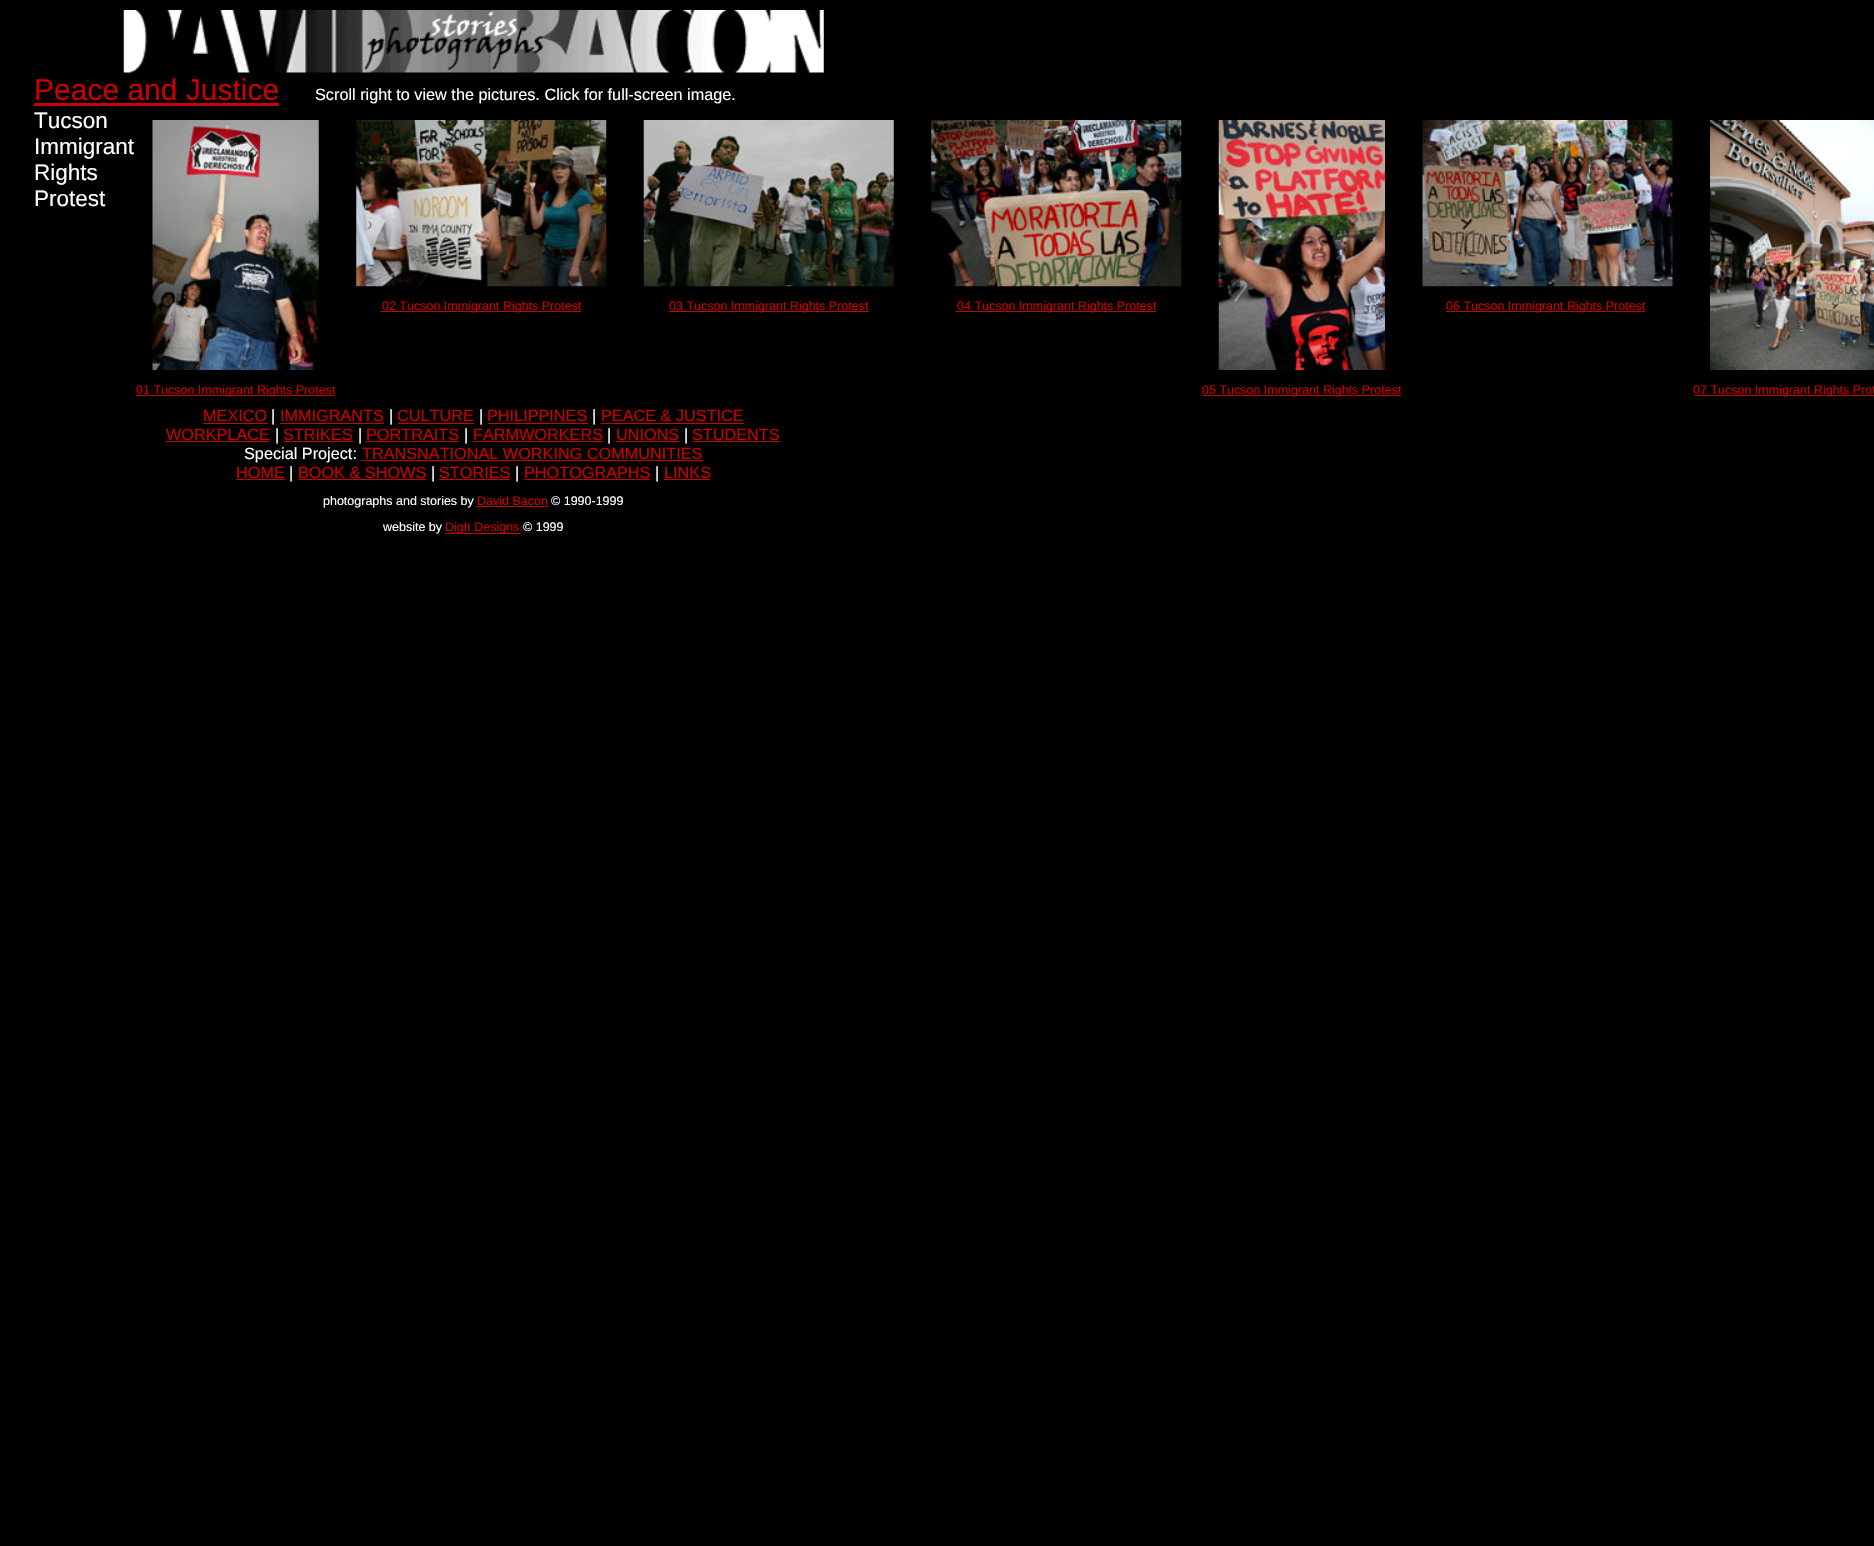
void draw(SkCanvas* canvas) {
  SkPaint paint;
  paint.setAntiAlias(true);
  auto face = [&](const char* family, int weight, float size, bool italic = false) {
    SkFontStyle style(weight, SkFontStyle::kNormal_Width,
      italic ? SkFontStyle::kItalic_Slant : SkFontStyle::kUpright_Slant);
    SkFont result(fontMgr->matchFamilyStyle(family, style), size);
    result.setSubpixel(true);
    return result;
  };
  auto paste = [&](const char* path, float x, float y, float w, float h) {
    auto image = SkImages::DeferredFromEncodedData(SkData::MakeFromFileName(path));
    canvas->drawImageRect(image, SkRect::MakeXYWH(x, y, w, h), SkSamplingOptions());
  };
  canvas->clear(0xff000000);
  paste("img/1.png", 123, 10, 701, 63);
  paint.setColor(0xffcc0000);
  canvas->drawRect(SkRect::MakeXYWH(34, 103, 245, 3), paint);
  paste("img/2.png", 356, 120, 251, 167);
  canvas->drawRect(SkRect::MakeXYWH(381, 311, 200, 1), paint);
  paste("img/3.png", 643, 120, 251, 167);
  canvas->drawRect(SkRect::MakeXYWH(669, 311, 200, 1), paint);
  paste("img/4.png", 931, 120, 251, 167);
  canvas->drawRect(SkRect::MakeXYWH(956, 311, 200, 1), paint);
  paste("img/5.png", 1422, 120, 251, 167);
  canvas->drawRect(SkRect::MakeXYWH(1446, 311, 199, 1), paint);
  paste("img/6.png", 152, 120, 167, 250);
  canvas->drawRect(SkRect::MakeXYWH(136, 395, 199, 1), paint);
  paste("img/7.png", 1218, 120, 167, 250);
  canvas->drawRect(SkRect::MakeXYWH(1203, 395, 198, 1), paint);
  paste("img/8.png", 1710, 120, 164, 250);
  {
    const struct { float x, y, w, h; SkColor color; } items[] = {
      {1694, 395, 180, 1, 0xffcc0000},
      {203, 423, 65, 1, 0xffcc0000},
      {280, 423, 104, 1, 0xffcc0000},
      {398, 423, 76, 1, 0xffcc0000},
      {488, 423, 100, 1, 0xffcc0000},
      {601, 423, 143, 1, 0xffcc0000},
      {166, 441, 104, 1, 0xffcc0000},
      {284, 441, 69, 1, 0xffcc0000},
      {366, 441, 93, 1, 0xffcc0000},
      {473, 441, 130, 1, 0xffcc0000},
      {616, 441, 63, 1, 0xffcc0000},
      {693, 441, 87, 1, 0xffcc0000},
      {361, 460, 342, 1, 0xffcc0000},
      {236, 479, 49, 1, 0xffcc0000},
      {298, 479, 128, 1, 0xffcc0000},
      {439, 479, 71, 1, 0xffcc0000},
      {524, 479, 126, 1, 0xffcc0000},
      {664, 479, 46, 1, 0xffcc0000},
      {476, 506, 72, 1, 0xffcc0000},
      {445, 533, 75, 1, 0xffcc0000},
    };
    for (auto [x, y, w, h, color] : items) {
      paint.setColor(color);
      canvas->drawRect(SkRect::MakeXYWH(x, y, w, h), paint);
    }
  }
  auto f0 = face("Liberation Sans", 400, 30);
  canvas->drawString("Peace and Justice", 34, 100, f0, paint);
  auto f1 = face("Liberation Sans", 400, 16.25f);
  paint.setColor(0xffffffff);
  canvas->drawString("Scroll right to view the pictures. Click for full-screen image.", 315, 100, f1, paint);
  auto f2 = face("Liberation Sans", 400, 22.5f);
  {
    const struct { const char* s; float x, y; } items[] = {
      {"Tucson", 34, 128},
      {"Immigrant", 34, 154},
      {"Rights", 34, 180},
      {"Protest", 34, 206},
    };
    for (auto [s, x, y] : items) {
      canvas->drawString(s, x, y, f2, paint);
    }
  }
  auto f3 = face("Liberation Sans", 400, 12.5f);
  paint.setColor(0xffcc0000);
  {
    const struct { const char* s; float x, y; } items[] = {
      {"02 Tucson Immigrant Rights Protest", 382, 310},
      {"03 Tucson Immigrant Rights Protest", 669, 310},
      {"04 Tucson Immigrant Rights Protest", 957, 310},
      {"06 Tucson Immigrant Rights Protest", 1446, 310},
      {"01 Tucson Immigrant Rights Protest", 136, 394},
      {"05 Tucson Immigrant Rights Protest", 1202, 394},
      {"07 Tucson Immigrant Rights Prot", 1693, 394},
    };
    for (auto [s, x, y] : items) {
      canvas->drawString(s, x, y, f3, paint);
    }
  }
  canvas->drawString("MEXICO", 203, 421, f1, paint);
  paint.setColor(0xffffffff);
  canvas->drawString("|", 271, 421, f1, paint);
  paint.setColor(0xffcc0000);
  canvas->drawString("IMMIGRANTS", 280, 421, f1, paint);
  paint.setColor(0xffffffff);
  canvas->drawString("|", 389, 421, f1, paint);
  paint.setColor(0xffcc0000);
  canvas->drawString("CULTURE", 397, 421, f1, paint);
  paint.setColor(0xffffffff);
  canvas->drawString("|", 479, 421, f1, paint);
  paint.setColor(0xffcc0000);
  canvas->drawString("PHILIPPINES", 487, 421, f1, paint);
  paint.setColor(0xffffffff);
  canvas->drawString("|", 592, 421, f1, paint);
  paint.setColor(0xffcc0000);
  canvas->drawString("PEACE & JUSTICE", 601, 421, f1, paint);
  canvas->drawString("WORKPLACE", 166, 440, f1, paint);
  paint.setColor(0xffffffff);
  canvas->drawString("|", 275, 440, f1, paint);
  paint.setColor(0xffcc0000);
  canvas->drawString("STRIKES", 283, 440, f1, paint);
  paint.setColor(0xffffffff);
  canvas->drawString("|", 358, 440, f1, paint);
  paint.setColor(0xffcc0000);
  canvas->drawString("PORTRAITS", 366, 440, f1, paint);
  paint.setColor(0xffffffff);
  canvas->drawString("|", 464, 440, f1, paint);
  paint.setColor(0xffcc0000);
  canvas->drawString("FARMWORKERS", 473, 440, f1, paint);
  paint.setColor(0xffffffff);
  canvas->drawString("|", 607, 440, f1, paint);
  paint.setColor(0xffcc0000);
  canvas->drawString("UNIONS", 616, 440, f1, paint);
  paint.setColor(0xffffffff);
  canvas->drawString("|", 684, 440, f1, paint);
  paint.setColor(0xffcc0000);
  canvas->drawString("STUDENTS", 692, 440, f1, paint);
  paint.setColor(0xffffffff);
  canvas->drawString("Special Project:", 244, 459, f1, paint);
  paint.setColor(0xffcc0000);
  canvas->drawString("TRANSNATIONAL WORKING COMMUNITIES", 362, 459, f1, paint);
  canvas->drawString("HOME", 236, 478, f1, paint);
  paint.setColor(0xffffffff);
  canvas->drawString("|", 289, 478, f1, paint);
  paint.setColor(0xffcc0000);
  canvas->drawString("BOOK & SHOWS", 298, 478, f1, paint);
  paint.setColor(0xffffffff);
  canvas->drawString("|", 431, 478, f1, paint);
  paint.setColor(0xffcc0000);
  canvas->drawString("STORIES", 439, 478, f1, paint);
  paint.setColor(0xffffffff);
  canvas->drawString("|", 515, 478, f1, paint);
  paint.setColor(0xffcc0000);
  canvas->drawString("PHOTOGRAPHS", 524, 478, f1, paint);
  paint.setColor(0xffffffff);
  canvas->drawString("|", 655, 478, f1, paint);
  paint.setColor(0xffcc0000);
  canvas->drawString("LINKS", 664, 478, f1, paint);
  paint.setColor(0xffffffff);
  canvas->drawString("photographs and stories by", 323, 505, f3, paint);
  paint.setColor(0xffcc0000);
  canvas->drawString("David Bacon", 477, 505, f3, paint);
  paint.setColor(0xffffffff);
  canvas->drawString("© 1990-1999", 551, 505, f3, paint);
  canvas->drawString("website by", 383, 531, f3, paint);
  paint.setColor(0xffcc0000);
  canvas->drawString("DigIt Designs", 445, 531, f3, paint);
  paint.setColor(0xffffffff);
  canvas->drawString("© 1999", 523, 531, f3, paint);
}
